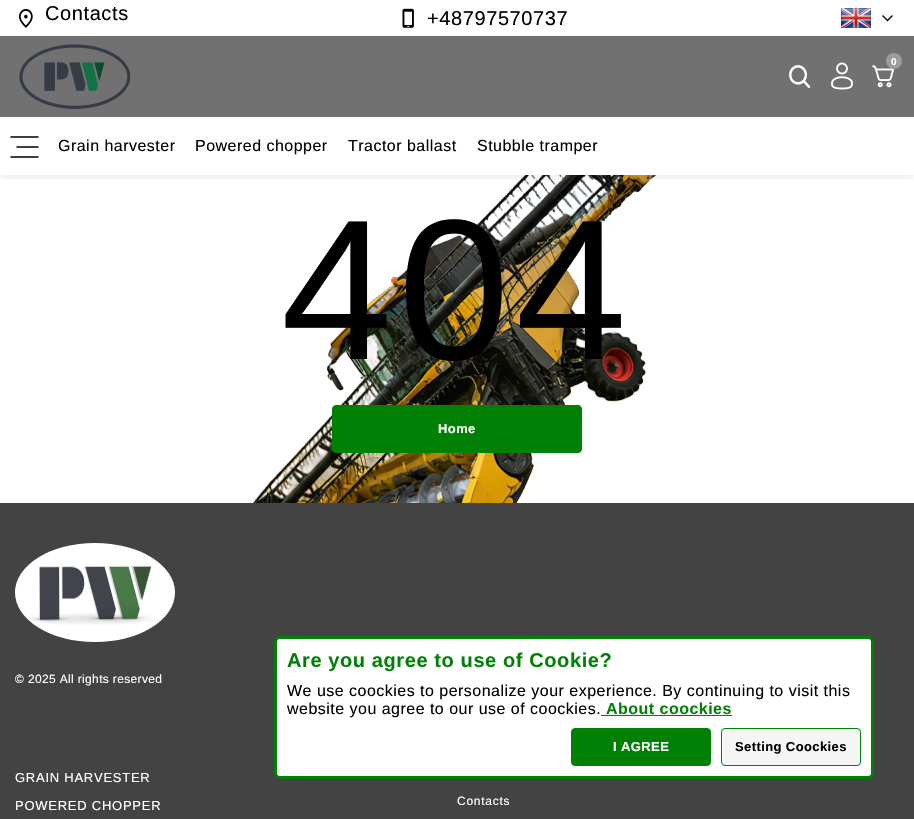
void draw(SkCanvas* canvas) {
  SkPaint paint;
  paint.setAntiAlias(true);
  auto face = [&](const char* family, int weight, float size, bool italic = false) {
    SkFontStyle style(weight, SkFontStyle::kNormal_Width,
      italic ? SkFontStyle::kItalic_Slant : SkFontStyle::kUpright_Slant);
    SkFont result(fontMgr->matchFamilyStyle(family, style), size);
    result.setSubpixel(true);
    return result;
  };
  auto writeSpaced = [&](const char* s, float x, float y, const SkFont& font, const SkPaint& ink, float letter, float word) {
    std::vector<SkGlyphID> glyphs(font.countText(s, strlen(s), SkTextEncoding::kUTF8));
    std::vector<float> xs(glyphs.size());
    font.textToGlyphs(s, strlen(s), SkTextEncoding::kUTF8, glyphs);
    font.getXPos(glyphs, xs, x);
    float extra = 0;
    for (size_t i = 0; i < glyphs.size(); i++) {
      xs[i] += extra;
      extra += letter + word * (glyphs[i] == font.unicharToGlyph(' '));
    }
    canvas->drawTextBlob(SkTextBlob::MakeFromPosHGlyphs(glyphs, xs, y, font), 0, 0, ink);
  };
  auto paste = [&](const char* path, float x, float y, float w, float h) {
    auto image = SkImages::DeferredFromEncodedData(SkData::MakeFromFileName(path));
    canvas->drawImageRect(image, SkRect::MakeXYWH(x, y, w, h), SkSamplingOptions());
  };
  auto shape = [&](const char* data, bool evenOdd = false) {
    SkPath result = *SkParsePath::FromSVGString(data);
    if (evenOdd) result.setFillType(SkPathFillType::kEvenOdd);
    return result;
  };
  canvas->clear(0xffffffff);
  paste("img/1.png", 19, 9, 14, 19);
  paste("img/2.png", 402, 8, 12, 20);
  paste("img/3.png", 841, 8, 30, 20);
  paint.setStroke(true);
  paint.setStrokeWidth(1.3f);
  paint.setColor(0xff000000);
  canvas->drawPath(shape("M882.5 15.5L887.5 20.5L892.5 15.5"), paint);
  paint.setStroke(false);
  paint.setColor(0xff717171);
  canvas->drawRect(SkRect::MakeXYWH(0, 36, 914, 81), paint);
  paste("img/4.png", 19, 44, 112, 65);
  paste("img/5.png", 789, 65, 22, 23);
  paste("img/6.png", 831, 62, 22, 28);
  paste("img/7.png", 872, 65, 22, 23);
  paint.setColor(0xff9d9d9d);
  canvas->drawCircle(894, 61, 8, paint);
  paste("img/8.png", 253, 175, 404, 328);
  canvas->save();
  canvas->clipRect(SkRect::MakeXYWH(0, 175, 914, 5));
  paint.setColor(0x0f000000);
  paint.setMaskFilter(SkMaskFilter::MakeBlur(kNormal_SkBlurStyle, 3));
  canvas->drawRect(SkRect::MakeXYWH(0, 121, 914, 58), paint);
  paint.setMaskFilter(nullptr);
  canvas->restore();
  paint.setStroke(true);
  paint.setStrokeWidth(1.5f);
  paint.setStrokeCap(SkPaint::kRound_Cap);
  paint.setStrokeJoin(SkPaint::kRound_Join);
  paint.setColor(0xff000000);
  canvas->drawPath(shape("M11 157H38M17 147H38M11 137H38"), paint);
  paint.setStroke(false);
  paint.setColor(0xff008105);
  canvas->drawRoundRect(SkRect::MakeXYWH(332.5f, 405.5f, 249, 47), 3.5f, 3.5f, paint);
  paint.setStroke(true);
  paint.setStrokeWidth(1);
  paint.setStrokeCap(SkPaint::kButt_Cap);
  paint.setStrokeJoin(SkPaint::kMiter_Join);
  canvas->drawRoundRect(SkRect::MakeXYWH(332.5f, 405.5f, 249, 47), 3.5f, 3.5f, paint);
  paint.setStroke(false);
  paint.setColor(0xff434343);
  canvas->drawRect(SkRect::MakeXYWH(0, 503, 914, 316), paint);
  paste("img/9.png", 15, 543, 160, 99);
  paint.setColor(0xffffffff);
  canvas->drawRoundRect(SkRect::MakeXYWH(275.5f, 637.5f, 597, 140), 4.5f, 4.5f, paint);
  paint.setStroke(true);
  paint.setStrokeWidth(3);
  paint.setColor(0xff008105);
  canvas->drawRoundRect(SkRect::MakeXYWH(275.5f, 637.5f, 597, 140), 4.5f, 4.5f, paint);
  paint.setStroke(false);
  canvas->drawRect(SkRect::MakeXYWH(601, 715, 131, 1), paint);
  canvas->drawRoundRect(SkRect::MakeXYWH(571.5f, 728.5f, 139, 37), 3.5f, 3.5f, paint);
  paint.setStroke(true);
  paint.setStrokeWidth(1);
  canvas->drawRoundRect(SkRect::MakeXYWH(571.5f, 728.5f, 139, 37), 3.5f, 3.5f, paint);
  paint.setStroke(false);
  paint.setColor(0xfff5f5f5);
  canvas->drawRoundRect(SkRect::MakeXYWH(721.5f, 728.5f, 139, 37), 3.5f, 3.5f, paint);
  paint.setStroke(true);
  paint.setColor(0xff008105);
  canvas->drawRoundRect(SkRect::MakeXYWH(721.5f, 728.5f, 139, 37), 3.5f, 3.5f, paint);
  auto f0 = face("Liberation Sans", 400, 20);
  paint.setStroke(false);
  paint.setColor(0xff000000);
  writeSpaced("Contacts", 45, 20, f0, paint, 0.6f, 0);
  writeSpaced("+48797570737", 427, 25, f0, paint, 0.6f, 0);
  auto f1 = face("Liberation Sans", 700, 10);
  paint.setColor(0xffffffff);
  canvas->drawString("0", 891, 65, f1, paint);
  auto f2 = face("Liberation Sans", 400, 16);
  paint.setColor(0xff000000);
  {
    const struct { const char* s; float x, y; } items[] = {
      {"Grain harvester", 58, 151},
      {"Powered chopper", 195, 151},
      {"Tractor ballast", 348, 151},
      {"Stubble tramper", 477, 151},
    };
    for (auto [s, x, y] : items) {
      writeSpaced(s, x, y, f2, paint, 0.48f, 0);
    }
  }
  auto f3 = face("Liberation Sans", 400, 200);
  writeSpaced("404", 281, 359, f3, paint, 6, 0);
  auto f4 = face("Liberation Sans", 700, 13);
  paint.setColor(0xffffffff);
  writeSpaced("Home", 438, 433, f4, paint, 0.4f, 0);
  auto f5 = face("Liberation Sans", 400, 12);
  writeSpaced("© 2025 All rights reserved", 15, 683, f5, paint, 0.35f, 0);
  auto f6 = face("Liberation Sans", 400, 13);
  writeSpaced("GRAIN HARVESTER", 15, 782, f6, paint, 0.75f, 0);
  writeSpaced("POWERED CHOPPER", 15, 810, f6, paint, 0.75f, 0);
  writeSpaced("Contacts", 457, 805, f5, paint, 0.75f, 0);
  auto f7 = face("Liberation Sans", 700, 20);
  paint.setColor(0xff008105);
  writeSpaced("Are you agree to use of Cookie?", 287, 667, f7, paint, 0.6f, 0);
  paint.setColor(0xff000000);
  writeSpaced("We use coockies to personalize your experience. By continuing to visit this", 287, 696, f2, paint, 0.48f, 0);
  writeSpaced("website you agree to our use of coockies.", 287, 714, f2, paint, 0.48f, 0);
  auto f8 = face("Liberation Sans", 700, 16);
  paint.setColor(0xff008105);
  writeSpaced("About coockies", 606, 714, f8, paint, 0.48f, 0);
  paint.setColor(0xffffffff);
  writeSpaced("I AGREE", 613, 751, f4, paint, 0.4f, 0);
  paint.setColor(0xff000000);
  writeSpaced("Setting Coockies", 735, 751, f4, paint, 0.4f, 0);
}
